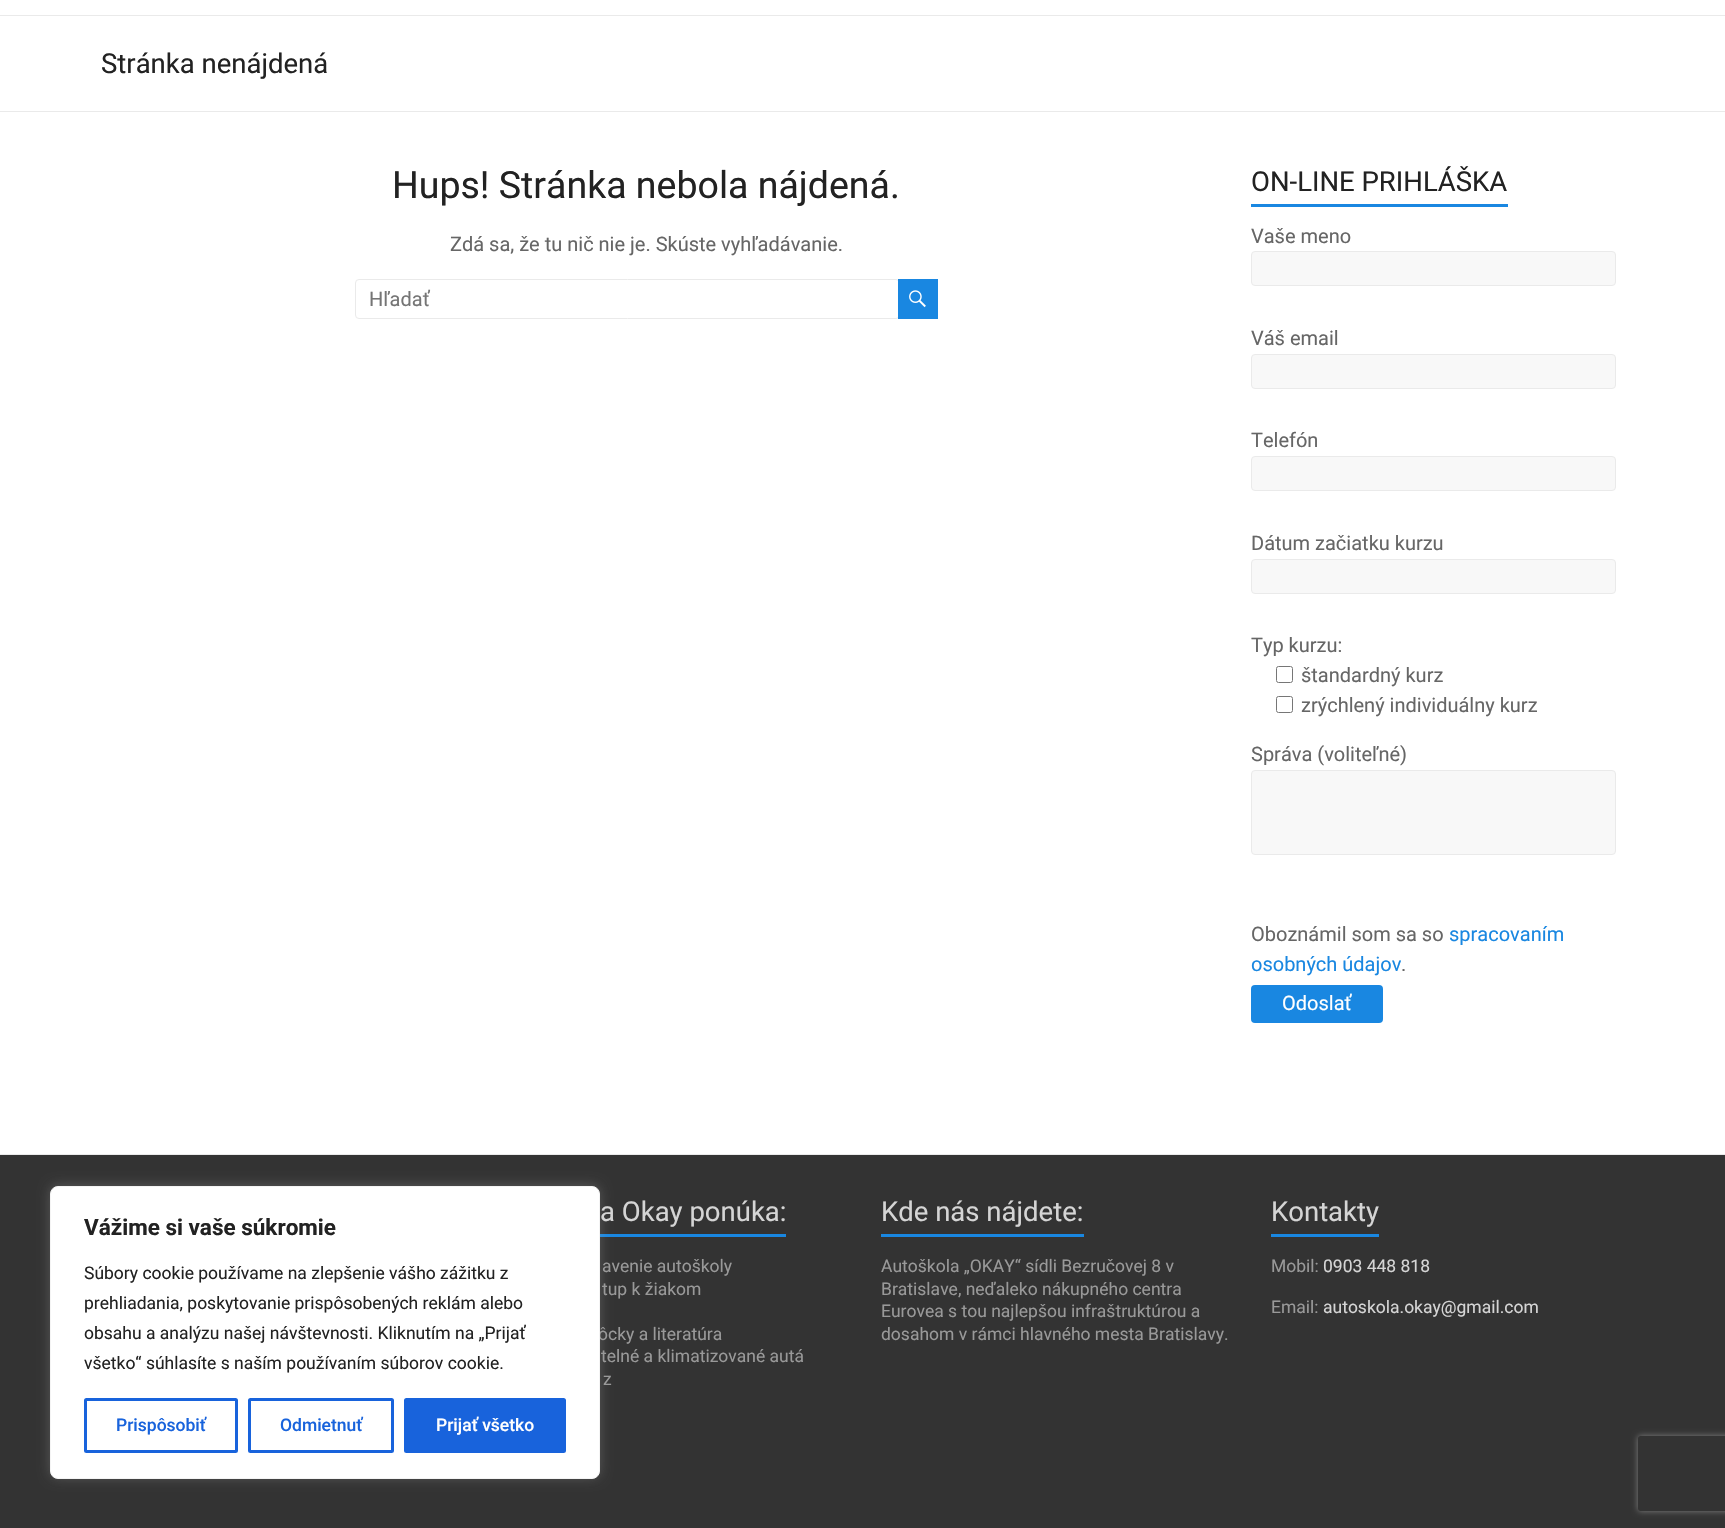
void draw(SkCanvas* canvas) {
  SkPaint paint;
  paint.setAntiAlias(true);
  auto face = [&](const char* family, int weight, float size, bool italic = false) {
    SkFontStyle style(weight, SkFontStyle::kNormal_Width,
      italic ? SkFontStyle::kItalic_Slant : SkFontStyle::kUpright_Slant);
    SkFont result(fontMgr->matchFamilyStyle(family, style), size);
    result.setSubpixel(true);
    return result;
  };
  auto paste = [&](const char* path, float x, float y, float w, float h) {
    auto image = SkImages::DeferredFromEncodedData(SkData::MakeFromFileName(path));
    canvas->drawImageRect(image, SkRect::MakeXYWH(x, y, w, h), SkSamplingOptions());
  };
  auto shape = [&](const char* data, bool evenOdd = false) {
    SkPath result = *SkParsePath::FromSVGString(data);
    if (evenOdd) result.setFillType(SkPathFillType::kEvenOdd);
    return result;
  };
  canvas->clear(0xffffffff);
  paint.setColor(0xffeaeaea);
  canvas->drawRect(SkRect::MakeXYWH(0, 15, 1725, 1), paint);
  canvas->drawRect(SkRect::MakeXYWH(0, 111, 1725, 1), paint);
  paint.setStroke(true);
  paint.setStrokeWidth(1);
  canvas->drawRoundRect(SkRect::MakeXYWH(355.5f, 279.5f, 544, 39), 3.5f, 3.5f, paint);
  paint.setStroke(false);
  paint.setColor(0xff1987e1);
  canvas->drawRect(SkRect::MakeXYWH(898, 279, 40, 40), paint);
  paste("img/1.png", 909, 290, 17, 18);
  canvas->drawRect(SkRect::MakeXYWH(1251, 204, 257, 3), paint);
  paint.setColor(0xfff8f8f8);
  canvas->drawRoundRect(SkRect::MakeXYWH(1251.5f, 251.5f, 364, 34), 3.5f, 3.5f, paint);
  paint.setStroke(true);
  paint.setColor(0xffeaeaea);
  canvas->drawRoundRect(SkRect::MakeXYWH(1251.5f, 251.5f, 364, 34), 3.5f, 3.5f, paint);
  paint.setStroke(false);
  paint.setColor(0xfff8f8f8);
  canvas->drawRoundRect(SkRect::MakeXYWH(1251.5f, 354.5f, 364, 34), 3.5f, 3.5f, paint);
  paint.setStroke(true);
  paint.setColor(0xffeaeaea);
  canvas->drawRoundRect(SkRect::MakeXYWH(1251.5f, 354.5f, 364, 34), 3.5f, 3.5f, paint);
  paint.setStroke(false);
  paint.setColor(0xfff8f8f8);
  canvas->drawRoundRect(SkRect::MakeXYWH(1251.5f, 456.5f, 364, 34), 3.5f, 3.5f, paint);
  paint.setStroke(true);
  paint.setColor(0xffeaeaea);
  canvas->drawRoundRect(SkRect::MakeXYWH(1251.5f, 456.5f, 364, 34), 3.5f, 3.5f, paint);
  paint.setStroke(false);
  paint.setColor(0xfff8f8f8);
  canvas->drawRoundRect(SkRect::MakeXYWH(1251.5f, 559.5f, 364, 34), 3.5f, 3.5f, paint);
  paint.setStroke(true);
  paint.setColor(0xffeaeaea);
  canvas->drawRoundRect(SkRect::MakeXYWH(1251.5f, 559.5f, 364, 34), 3.5f, 3.5f, paint);
  paint.setColor(0xff767676);
  canvas->drawRoundRect(SkRect::MakeXYWH(1276.5f, 666.5f, 16, 16), 2, 2, paint);
  canvas->drawRoundRect(SkRect::MakeXYWH(1276.5f, 696.5f, 16, 16), 2, 2, paint);
  paint.setStroke(false);
  paint.setColor(0xfff8f8f8);
  canvas->drawRoundRect(SkRect::MakeXYWH(1251.5f, 770.5f, 364, 84), 3.5f, 3.5f, paint);
  paint.setStroke(true);
  paint.setColor(0xffeaeaea);
  canvas->drawRoundRect(SkRect::MakeXYWH(1251.5f, 770.5f, 364, 84), 3.5f, 3.5f, paint);
  paint.setStroke(false);
  paint.setColor(0xff1987e1);
  canvas->drawRoundRect(SkRect::MakeXYWH(1251, 985, 132, 38), 4, 4, paint);
  {
    const struct { float x, y, w, h; SkColor color; } items[] = {
      {0, 1155, 1725, 373, 0xff333333},
      {0, 1154, 1725, 1, 0xffeaeaea},
      {600, 1234, 186, 3, 0xff1987e1},
      {881, 1234, 203, 3, 0xff1987e1},
      {1271, 1234, 108, 3, 0xff1987e1},
    };
    for (auto [x, y, w, h, color] : items) {
      paint.setColor(color);
      canvas->drawRect(SkRect::MakeXYWH(x, y, w, h), paint);
    }
  }
  paint.setColor(0x4dacabab);
  paint.setMaskFilter(SkMaskFilter::MakeBlur(kNormal_SkBlurStyle, 6));
  canvas->drawRoundRect(SkRect::MakeXYWH(50, 1185, 550, 293), 8, 8, paint);
  paint.setMaskFilter(nullptr);
  canvas->save();
  canvas->clipPath(shape("M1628 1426H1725V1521H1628ZM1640.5 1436H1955.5C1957 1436 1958 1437 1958 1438.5V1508.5C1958 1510 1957 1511 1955.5 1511H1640.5C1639 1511 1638 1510 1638 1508.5V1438.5C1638 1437 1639 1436 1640.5 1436Z", true), true);
  paint.setColor(0xff808080);
  paint.setMaskFilter(SkMaskFilter::MakeBlur(kNormal_SkBlurStyle, 3));
  canvas->drawRoundRect(SkRect::MakeXYWH(1638, 1436, 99, 75), 2.5f, 2.5f, paint);
  paint.setMaskFilter(nullptr);
  canvas->restore();
  auto f0 = face("Roboto", 400, 27.5f);
  paint.setColor(0xff222222);
  canvas->drawString("Stránka nenájdená", 101, 73, f0, paint);
  auto f1 = face("Roboto", 400, 37.5f);
  canvas->drawString("Hups! Stránka nebola nájdená.", 392, 198, f1, paint);
  auto f2 = face("Roboto", 400, 20);
  paint.setColor(0xff666666);
  canvas->drawString("Zdá sa, že tu nič nie je. Skúste vyhľadávanie.", 450, 251, f2, paint);
  paint.setColor(0xff757575);
  canvas->drawString("Hľadať", 369, 306, f2, paint);
  paint.setColor(0xff222222);
  canvas->drawString("ON-LINE PRIHLÁŠKA", 1251, 191, f0, paint);
  paint.setColor(0xff666666);
  {
    const struct { const char* s; float x, y; } items[] = {
      {"Vaše meno", 1251, 243},
      {"Váš email", 1251, 345},
      {"Telefón", 1251, 447},
      {"Dátum začiatku kurzu", 1251, 550},
      {"Typ kurzu:", 1251, 652},
      {"štandardný kurz", 1301, 682},
      {"zrýchlený individuálny kurz", 1301, 712},
      {"Správa (voliteľné)", 1251, 761},
      {"Oboznámil som sa so", 1251, 941},
    };
    for (auto [s, x, y] : items) {
      canvas->drawString(s, x, y, f2, paint);
    }
  }
  paint.setColor(0xff1987e1);
  canvas->drawString("spracovaním", 1449, 941, f2, paint);
  canvas->drawString("osobných údajov", 1251, 971, f2, paint);
  paint.setColor(0xff666666);
  canvas->drawString(".", 1401, 971, f2, paint);
  paint.setColor(0xffffffff);
  canvas->drawString("Odoslať", 1282, 1010, f2, paint);
  paint.setColor(0xffd5d5d5);
  canvas->drawString("a Okay ponúka:", 600, 1221, f0, paint);
  auto f3 = face("Roboto", 400, 17.5f);
  paint.setColor(0xff999999);
  {
    const struct { const char* s; float x, y; } items[] = {
      {"avenie autoškoly", 602, 1272},
      {"tup k žiakom", 602, 1295},
      {"ôcky a literatúra", 598, 1340},
      {"telné a klimatizované autá", 601, 1362},
      {"z", 603, 1385},
    };
    for (auto [s, x, y] : items) {
      canvas->drawString(s, x, y, f3, paint);
    }
  }
  paint.setColor(0xffd5d5d5);
  canvas->drawString("Kde nás nájdete:", 881, 1221, f0, paint);
  paint.setColor(0xff999999);
  {
    const struct { const char* s; float x, y; } items[] = {
      {"Autoškola „OKAY“ sídli Bezručovej 8 v", 881, 1272},
      {"Bratislave, neďaleko nákupného centra", 881, 1295},
      {"Eurovea s tou najlepšou infraštruktúrou a", 881, 1317},
      {"dosahom v rámci hlavného mesta Bratislavy.", 881, 1340},
    };
    for (auto [s, x, y] : items) {
      canvas->drawString(s, x, y, f3, paint);
    }
  }
  paint.setColor(0xffd5d5d5);
  canvas->drawString("Kontakty", 1271, 1221, f0, paint);
  paint.setColor(0xff999999);
  canvas->drawString("Mobil:", 1271, 1272, f3, paint);
  paint.setColor(0xffd5d5d5);
  canvas->drawString("0903 448 818", 1323, 1272, f3, paint);
  paint.setColor(0xff999999);
  canvas->drawString("Email:", 1271, 1313, f3, paint);
  paint.setColor(0xffd5d5d5);
  canvas->drawString("autoskola.okay@gmail.com", 1323, 1313, f3, paint);
  paint.setColor(0xffffffff);
  canvas->drawRoundRect(SkRect::MakeXYWH(50.5f, 1186.5f, 549, 292), 7.5f, 7.5f, paint);
  paint.setStroke(true);
  paint.setColor(0xfff4f4f4);
  canvas->drawRoundRect(SkRect::MakeXYWH(50.5f, 1186.5f, 549, 292), 7.5f, 7.5f, paint);
  auto f4 = face("Roboto", 700, 22.5f);
  paint.setStroke(false);
  paint.setColor(0xff222222);
  canvas->drawString("Vážime si vaše súkromie", 84, 1235, f4, paint);
  {
    const struct { const char* s; float x, y; } items[] = {
      {"Súbory cookie používame na zlepšenie vášho zážitku z", 84, 1279},
      {"prehliadania, poskytovanie prispôsobených reklám alebo", 84, 1309},
      {"obsahu a analýzu našej návštevnosti. Kliknutím na „Prijať", 84, 1339},
      {"všetko“ súhlasíte s naším používaním súborov cookie.", 84, 1369},
    };
    for (auto [s, x, y] : items) {
      canvas->drawString(s, x, y, f3, paint);
    }
  }
  paint.setStroke(true);
  paint.setStrokeWidth(3);
  paint.setColor(0xff1863dc);
  canvas->drawRoundRect(SkRect::MakeXYWH(85.5f, 1399.5f, 151, 52), 1, 1, paint);
  auto f5 = face("Roboto", 500, 17.5f);
  paint.setStroke(false);
  canvas->drawString("Prispôsobiť", 116, 1431, f5, paint);
  paint.setStroke(true);
  canvas->drawRoundRect(SkRect::MakeXYWH(249.5f, 1399.5f, 143, 52), 1, 1, paint);
  paint.setStroke(false);
  canvas->drawString("Odmietnuť", 280, 1431, f5, paint);
  canvas->drawRoundRect(SkRect::MakeXYWH(405.5f, 1399.5f, 159, 52), 1, 1, paint);
  paint.setStroke(true);
  canvas->drawRoundRect(SkRect::MakeXYWH(405.5f, 1399.5f, 159, 52), 1, 1, paint);
  paint.setStroke(false);
  paint.setColor(0xffffffff);
  canvas->drawString("Prijať všetko", 436, 1431, f5, paint);
}
